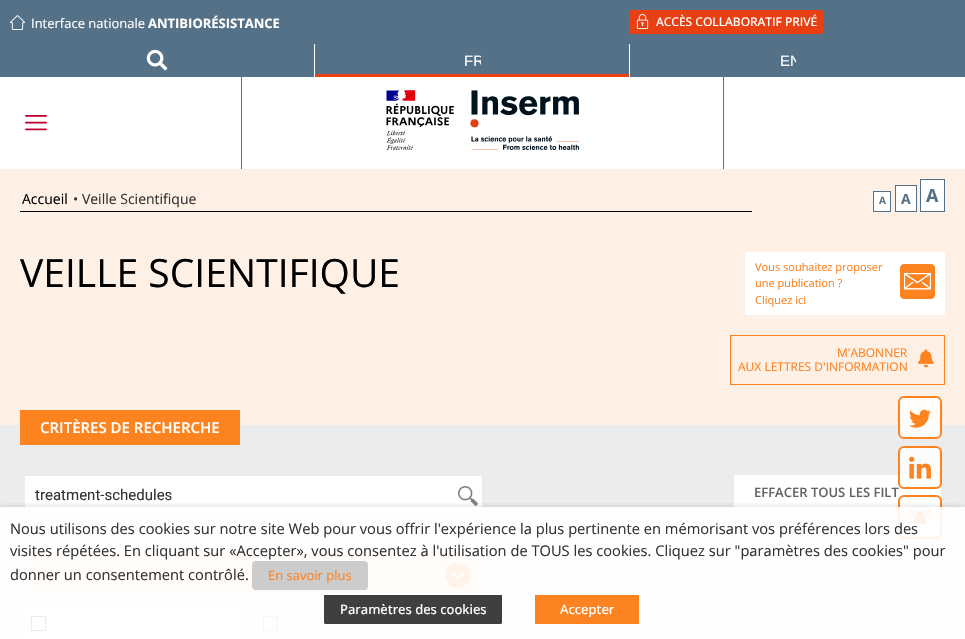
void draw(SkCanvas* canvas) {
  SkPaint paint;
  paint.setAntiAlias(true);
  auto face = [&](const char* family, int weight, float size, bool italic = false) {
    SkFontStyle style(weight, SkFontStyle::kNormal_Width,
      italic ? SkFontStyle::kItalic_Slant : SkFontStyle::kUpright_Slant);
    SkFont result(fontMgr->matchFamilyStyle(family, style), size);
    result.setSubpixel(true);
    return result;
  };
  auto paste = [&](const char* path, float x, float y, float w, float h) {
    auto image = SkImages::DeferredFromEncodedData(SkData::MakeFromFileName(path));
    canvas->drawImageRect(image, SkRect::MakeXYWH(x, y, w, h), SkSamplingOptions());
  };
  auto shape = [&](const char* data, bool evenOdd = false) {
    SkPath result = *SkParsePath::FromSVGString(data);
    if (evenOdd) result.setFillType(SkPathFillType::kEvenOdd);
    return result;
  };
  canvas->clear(0xfffff0e6);
  paint.setColor(0xff557187);
  canvas->drawRect(SkRect::MakeXYWH(0, 0, 965, 77), paint);
  paste("img/1.png", 10, 15, 15, 15);
  paint.setColor(0xffe83f13);
  canvas->drawRoundRect(SkRect::MakeXYWH(629, 10, 194, 24), 2, 2, paint);
  paste("img/2.png", 636, 14, 13, 15);
  paint.setColor(0xffffffff);
  canvas->drawRect(SkRect::MakeXYWH(314, 44, 1, 33), paint);
  paste("img/3.png", 146, 49, 22, 22);
  {
    const struct { float x, y, w, h; SkColor color; } items[] = {
      {629, 44, 1, 33, 0xffffffff},
      {315, 74, 314, 3, 0xffe83f13},
      {0, 77, 965, 92, 0xffffffff},
      {723, 77, 1, 92, 0xff557187},
      {241, 77, 1, 92, 0xff557187},
    };
    for (auto [x, y, w, h, color] : items) {
      paint.setColor(color);
      canvas->drawRect(SkRect::MakeXYWH(x, y, w, h), paint);
    }
  }
  paste("img/4.png", 386, 90, 194, 60);
  paste("img/5.png", 25, 115, 22, 16);
  paint.setColor(0xffececec);
  canvas->drawRect(SkRect::MakeXYWH(0, 425, 965, 214), paint);
  paint.setColor(0xc2ffffff);
  canvas->drawRoundRect(SkRect::MakeXYWH(899, 397, 42, 41), 5, 5, paint);
  paint.setStroke(true);
  paint.setStrokeWidth(2);
  paint.setColor(0xfffd8321);
  canvas->drawRoundRect(SkRect::MakeXYWH(899, 397, 42, 41), 5, 5, paint);
  paste("img/6.png", 909, 409, 22, 19);
  paint.setStroke(false);
  paint.setColor(0xff000000);
  canvas->drawRect(SkRect::MakeXYWH(20, 211, 732, 1), paint);
  paint.setColor(0xffffffff);
  canvas->drawRect(SkRect::MakeXYWH(873.5f, 191.5f, 17, 20), paint);
  paint.setStroke(true);
  paint.setStrokeWidth(1);
  paint.setColor(0xff557187);
  canvas->drawRect(SkRect::MakeXYWH(873.5f, 191.5f, 17, 20), paint);
  paint.setStroke(false);
  paint.setColor(0xffffffff);
  canvas->drawRect(SkRect::MakeXYWH(895.5f, 185.5f, 21, 26), paint);
  paint.setStroke(true);
  paint.setColor(0xff557187);
  canvas->drawRect(SkRect::MakeXYWH(895.5f, 185.5f, 21, 26), paint);
  paint.setStroke(false);
  paint.setColor(0xffffffff);
  canvas->drawRect(SkRect::MakeXYWH(920.5f, 179.5f, 24, 32), paint);
  paint.setStroke(true);
  paint.setColor(0xff557187);
  canvas->drawRect(SkRect::MakeXYWH(920.5f, 179.5f, 24, 32), paint);
  paint.setStroke(false);
  paint.setColor(0xffffffff);
  canvas->drawRect(SkRect::MakeXYWH(745, 252, 200, 63), paint);
  paste("img/9.png", 900, 264, 35, 35);
  paint.setStroke(true);
  paint.setColor(0xfffd8321);
  canvas->drawRect(SkRect::MakeXYWH(730.5f, 335.5f, 214, 49), paint);
  paste("img/10.png", 918, 349, 16, 19);
  paint.setStroke(false);
  canvas->drawRect(SkRect::MakeXYWH(20, 410, 220, 35), paint);
  paint.setColor(0xffffffff);
  canvas->drawRect(SkRect::MakeXYWH(25, 476, 457, 39), paint);
  paste("img/11.png", 458, 486, 20, 20);
  paint.setStroke(true);
  paint.setColor(0xfffd8321);
  canvas->drawCircle(40, 528, 5.5f, paint);
  paste("img/12.png", 39, 523, 3, 8);
  paint.setStroke(false);
  paint.setColor(0xffffffff);
  canvas->drawRect(SkRect::MakeXYWH(734, 475, 207, 34), paint);
  paint.setColor(0xfffddabc);
  canvas->drawRect(SkRect::MakeXYWH(24, 555, 454, 40), paint);
  paint.setColor(0xfffd8321);
  canvas->drawCircle(457.5f, 575.5f, 11.5f, paint);
  paint.setStroke(true);
  paint.setStrokeWidth(2);
  canvas->drawCircle(457.5f, 575.5f, 11.5f, paint);
  paste("img/13.png", 452, 572, 12, 8);
  paint.setStroke(false);
  paint.setColor(0xffffffff);
  canvas->drawRect(SkRect::MakeXYWH(24, 604, 222, 35), paint);
  paint.setStroke(true);
  paint.setStrokeWidth(1);
  paint.setColor(0xff333333);
  canvas->drawRect(SkRect::MakeXYWH(31.5f, 616.5f, 14, 14), paint);
  paint.setStroke(false);
  paint.setColor(0xfff4f4f4);
  canvas->drawRect(SkRect::MakeXYWH(256, 604, 222, 35), paint);
  paint.setStroke(true);
  paint.setColor(0xffa2a2a2);
  canvas->drawRect(SkRect::MakeXYWH(263.5f, 616.5f, 14, 14), paint);
  auto f0 = face("Open Sans", 400, 13);
  paint.setStroke(false);
  paint.setColor(0xffffffff);
  canvas->drawString("Interface nationale", 31, 28, f0, paint);
  auto f1 = face("Open Sans", 700, 13);
  canvas->drawString("ANTIBIORÉSISTANCE", 148, 28, f1, paint);
  auto f2 = face("Open Sans", 500, 12);
  canvas->drawString("ACCÈS COLLABORATIF PRIVÉ", 656, 26, f2, paint);
  canvas->save();
  canvas->clipRect(SkRect::MakeXYWH(464, 51, 17, 19));
  auto f3 = face("Liberation Sans", 400, 15);
  canvas->drawString("FR", 464, 66, f3, paint);
  canvas->restore();
  canvas->save();
  canvas->clipRect(SkRect::MakeXYWH(780, 51, 16, 19));
  canvas->drawString("EN", 780, 66, f3, paint);
  canvas->restore();
  auto f4 = face("Open Sans", 400, 14);
  paint.setColor(0xff000000);
  canvas->drawString("Accueil", 22, 204, f4, paint);
  paint.setColor(0xff333333);
  canvas->drawString("• Veille Scientifique", 73, 204, f4, paint);
  auto f5 = face("Open Sans", 700, 10);
  paint.setColor(0xff557187);
  canvas->drawString("A", 879, 204, f5, paint);
  auto f6 = face("Open Sans", 700, 14);
  canvas->drawString("A", 901, 204, f6, paint);
  auto f7 = face("Open Sans", 700, 18);
  canvas->drawString("A", 926, 202, f7, paint);
  auto f8 = face("Open Sans", 400, 39);
  paint.setColor(0xff000000);
  canvas->drawString("VEILLE SCIENTIFIQUE", 20, 287, f8, paint);
  auto f9 = face("Open Sans", 400, 11);
  paint.setColor(0xfffd8321);
  {
    const struct { const char* s; float x, y; } items[] = {
      {"Vous souhaitez proposer", 755, 271},
      {"une publication ?", 755, 287},
      {"Cliquez ici", 755, 304},
    };
    for (auto [s, x, y] : items) {
      canvas->drawString(s, x, y, f9, paint);
    }
  }
  auto f10 = face("Open Sans", 400, 12);
  canvas->drawString("M'ABONNER", 837, 357, f10, paint);
  canvas->drawString("AUX LETTRES D'INFORMATION", 738, 371, f10, paint);
  auto f11 = face("Open Sans", 600, 15);
  paint.setColor(0xffffffff);
  canvas->drawString("CRITÈRES DE RECHERCHE", 40, 433, f11, paint);
  auto f12 = face("Roboto", 400, 15);
  paint.setColor(0xff333333);
  canvas->drawString("treatment-schedules", 35, 500, f12, paint);
  auto f13 = face("Open Sans", 600, 13);
  paint.setColor(0xff646363);
  canvas->drawString("EFFACER TOUS LES FILT", 754, 497, f13, paint);
  paint.setColor(0xc2ffffff);
  canvas->drawRoundRect(SkRect::MakeXYWH(899, 447, 42, 41), 5, 5, paint);
  paint.setStroke(true);
  paint.setStrokeWidth(2);
  paint.setColor(0xfffd8321);
  canvas->drawRoundRect(SkRect::MakeXYWH(899, 447, 42, 41), 5, 5, paint);
  paste("img/7.png", 909, 456, 22, 23);
  paint.setStroke(false);
  paint.setColor(0xc2ffffff);
  canvas->drawRoundRect(SkRect::MakeXYWH(899, 496, 42, 42), 5, 5, paint);
  paint.setStroke(true);
  paint.setColor(0xfffd8321);
  canvas->drawRoundRect(SkRect::MakeXYWH(899, 496, 42, 42), 5, 5, paint);
  paste("img/8.png", 909, 508, 22, 19);
  canvas->save();
  canvas->clipRect(SkRect::MakeXYWH(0, 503, 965, 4));
  paint.setStroke(false);
  paint.setColor(0x80000000);
  paint.setMaskFilter(SkMaskFilter::MakeBlur(kNormal_SkBlurStyle, 5));
  canvas->drawRect(SkRect::MakeXYWH(0, 512, 965, 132), paint);
  paint.setMaskFilter(nullptr);
  canvas->restore();
  paint.setColor(0xe6ffffff);
  canvas->drawRect(SkRect::MakeXYWH(0, 507, 965, 132), paint);
  auto f14 = face("Open Sans", 400, 14.67f);
  paint.setColor(0xff333333);
  {
    const struct { const char* s; float x, y; } items[] = {
      {"Nous utilisons des cookies sur notre site Web pour vous offrir l'expérience la plus pertinente en mémorisant vos préférences lors des", 10, 534},
      {"visites répétées. En cliquant sur «Accepter», vous consentez à l'utilisation de TOUS les cookies. Cliquez sur \"paramètres des cookies\" pour", 10, 556},
      {"donner un consentement contrôlé.", 10, 580},
    };
    for (auto [s, x, y] : items) {
      canvas->drawString(s, x, y, f14, paint);
    }
  }
  paint.setColor(0xffcccccc);
  canvas->drawRoundRect(SkRect::MakeXYWH(252, 561, 116, 29), 4, 4, paint);
  paint.setColor(0xfffd8321);
  canvas->drawString("En savoir plus", 268, 580, f0, paint);
  paint.setColor(0xff3f3f3f);
  canvas->drawPath(shape("M325 595H501C502 595 502 595 502 596V621C502 623 502 624 501 624H325C324 624 324 623 324 621V596C324 595 324 595 325 595Z"), paint);
  paint.setStroke(true);
  paint.setStrokeWidth(1);
  paint.setColor(0xfffffcfc);
  canvas->drawRoundRect(SkRect::MakeXYWH(321.5f, 592.5f, 183, 32), 3.5f, 3.5f, paint);
  paint.setStroke(false);
  canvas->drawRect(SkRect::MakeXYWH(323, 593, 155, 2), paint);
  auto f15 = face("Open Sans", 500, 13);
  paint.setColor(0xffffffff);
  canvas->drawString("Paramètres des cookies", 340, 614, f15, paint);
  paint.setColor(0xfffd8321);
  canvas->drawRect(SkRect::MakeXYWH(535, 595, 104, 29), paint);
  paint.setColor(0xffffffff);
  canvas->drawString("Accepter", 560, 614, f15, paint);
}
